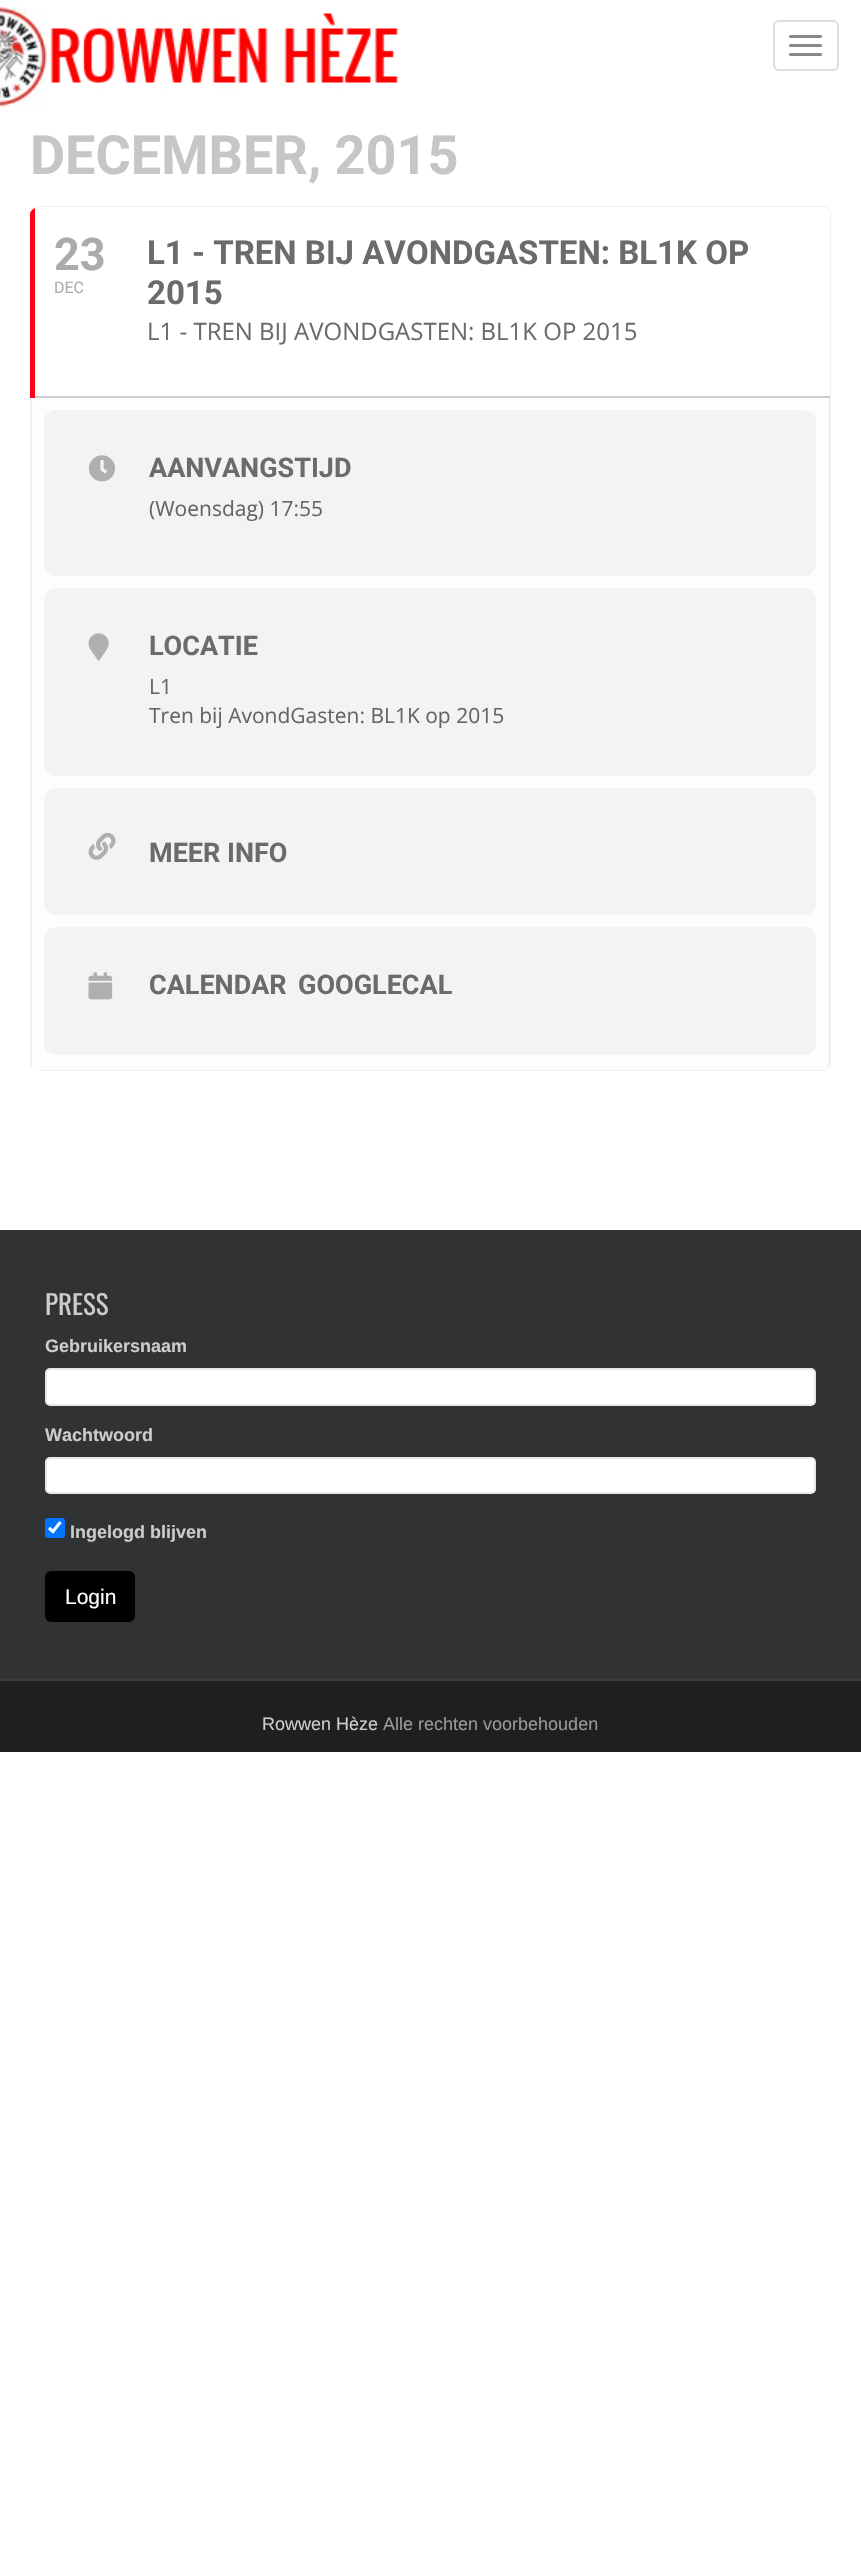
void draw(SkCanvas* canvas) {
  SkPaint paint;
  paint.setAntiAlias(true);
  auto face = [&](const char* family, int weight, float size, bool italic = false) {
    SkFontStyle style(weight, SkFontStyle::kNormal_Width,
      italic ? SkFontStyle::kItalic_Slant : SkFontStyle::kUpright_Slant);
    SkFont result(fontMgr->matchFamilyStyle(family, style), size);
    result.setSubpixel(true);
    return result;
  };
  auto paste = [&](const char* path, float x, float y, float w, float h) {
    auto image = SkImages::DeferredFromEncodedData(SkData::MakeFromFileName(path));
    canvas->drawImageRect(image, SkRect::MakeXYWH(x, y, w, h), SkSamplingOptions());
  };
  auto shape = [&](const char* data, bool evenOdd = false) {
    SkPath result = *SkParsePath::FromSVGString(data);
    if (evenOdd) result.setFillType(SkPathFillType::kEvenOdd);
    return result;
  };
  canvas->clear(0xffffffff);
  paste("img/1.png", 0, 7, 398, 100);
  paint.setStroke(true);
  paint.setStrokeWidth(2);
  paint.setColor(0xffdddddd);
  canvas->drawRoundRect(SkRect::MakeXYWH(774, 21, 64, 49), 5, 5, paint);
  paint.setStroke(false);
  paint.setColor(0xff888888);
  canvas->drawRoundRect(SkRect::MakeXYWH(789, 35, 33, 3), 1.5f, 1.5f, paint);
  canvas->drawRoundRect(SkRect::MakeXYWH(789, 44, 33, 3), 1.5f, 1.5f, paint);
  canvas->drawRoundRect(SkRect::MakeXYWH(789, 53, 33, 3), 1.5f, 1.5f, paint);
  paint.setColor(0xffefeeee);
  canvas->drawPath(shape("M39 206H822C827 206 831 210 831 214V1062C831 1067 827 1071 822 1071H39C34 1071 30 1067 30 1062V214C30 210 34 206 39 206ZM39 207H822C826 207 830 210 830 214V1062C830 1067 826 1071 822 1071H39C34 1071 30 1067 30 1062V214C30 210 34 207 39 207Z", true), paint);
  paint.setColor(0xffffffff);
  canvas->drawPath(shape("M39 207C34 207 30 210 30 214V398H830V214C830 210 826 207 822 207Z"), paint);
  paint.setColor(0xffff001a);
  canvas->drawPath(shape("M35 208C32 209 30 212 30 214V398H35Z"), paint);
  paint.setColor(0xffcdcdcd);
  canvas->drawRect(SkRect::MakeXYWH(35, 396, 795, 2), paint);
  paint.setColor(0xfffdfdfd);
  canvas->drawPath(shape("M30 398V1062C30 1067 34 1071 39 1071H822C826 1071 830 1067 830 1062V398Z"), paint);
  paint.setColor(0xfff1f1f1);
  canvas->drawPath(shape("M828 398H830V1062C830 1064 829 1066 828 1067Z"), paint);
  canvas->drawPath(shape("M39 1071H822L825 1070H35Z"), paint);
  canvas->drawPath(shape("M30 398V1062C30 1064 31 1066 32 1068V398Z"), paint);
  paint.setColor(0xfff3f3f3);
  canvas->drawRoundRect(SkRect::MakeXYWH(44, 410, 772, 166), 12, 12, paint);
  paste("img/2.png", 89, 455, 26, 27);
  canvas->drawRoundRect(SkRect::MakeXYWH(44, 588, 772, 188), 12, 12, paint);
  paste("img/3.png", 88, 633, 21, 28);
  canvas->drawRoundRect(SkRect::MakeXYWH(44, 788, 772, 127), 12, 12, paint);
  paste("img/4.png", 88, 832, 28, 28);
  canvas->drawRoundRect(SkRect::MakeXYWH(44, 927, 772, 128), 12, 12, paint);
  paste("img/5.png", 88, 972, 25, 28);
  paint.setColor(0xff313233);
  canvas->drawRect(SkRect::MakeXYWH(0, 1230, 861, 449), paint);
  paint.setColor(0xffffffff);
  canvas->drawRoundRect(SkRect::MakeXYWH(46, 1369, 769, 36), 4, 4, paint);
  paint.setStroke(true);
  paint.setColor(0xffe8e8e8);
  canvas->drawRoundRect(SkRect::MakeXYWH(46, 1369, 769, 36), 4, 4, paint);
  paint.setStroke(false);
  paint.setColor(0xffffffff);
  canvas->drawRoundRect(SkRect::MakeXYWH(46, 1458, 769, 35), 4, 4, paint);
  paint.setStroke(true);
  paint.setColor(0xffe8e8e8);
  canvas->drawRoundRect(SkRect::MakeXYWH(46, 1458, 769, 35), 4, 4, paint);
  paint.setStroke(false);
  paint.setColor(0xff0075ff);
  canvas->drawRoundRect(SkRect::MakeXYWH(45, 1518, 20, 20), 3, 3, paint);
  paint.setStroke(true);
  paint.setStrokeWidth(3.1f);
  paint.setColor(0xffffffff);
  canvas->drawPath(shape("M49 1528L53 1531.5L60.5 1522"), paint);
  paint.setStroke(false);
  paint.setColor(0xff000000);
  canvas->drawRoundRect(SkRect::MakeXYWH(46, 1572, 88, 49), 5, 5, paint);
  paint.setStroke(true);
  paint.setStrokeWidth(2);
  canvas->drawRoundRect(SkRect::MakeXYWH(46, 1572, 88, 49), 5, 5, paint);
  paint.setStroke(false);
  paint.setColor(0xff1f1f1f);
  canvas->drawRect(SkRect::MakeXYWH(0, 1681, 861, 71), paint);
  paint.setColor(0xff3a3a3a);
  canvas->drawRect(SkRect::MakeXYWH(0, 1679, 861, 2), paint);
  auto f0 = face("Roboto", 700, 54);
  paint.setColor(0xffc6c6c6);
  canvas->drawString("DECEMBER, 2015", 30, 174, f0, paint);
  auto f1 = face("Roboto", 700, 45);
  paint.setColor(0xffababab);
  canvas->drawString("23", 54, 270, f1, paint);
  auto f2 = face("Roboto", 400, 16);
  canvas->drawString("DEC", 54, 293, f2, paint);
  auto f3 = face("Roboto", 700, 33);
  paint.setColor(0xff6b6b6b);
  canvas->drawString("L1 - TREN BIJ AVONDGASTEN: BL1K OP", 147, 264, f3, paint);
  canvas->drawString("2015", 147, 304, f3, paint);
  auto f4 = face("Open Sans", 400, 24);
  canvas->drawString("L1 - TREN BIJ AVONDGASTEN: BL1K OP 2015", 147, 340, f4, paint);
  auto f5 = face("Roboto", 700, 27);
  canvas->drawString("AANVANGSTIJD", 149, 477, f5, paint);
  auto f6 = face("Open Sans", 400, 21);
  paint.setColor(0xff656565);
  canvas->drawString("(Woensdag) 17:55", 149, 516, f6, paint);
  paint.setColor(0xff6b6b6b);
  canvas->drawString("LOCATIE", 149, 655, f5, paint);
  paint.setColor(0xff656565);
  canvas->drawString("L1", 149, 694, f6, paint);
  canvas->drawString("Tren bij AvondGasten: BL1K op 2015", 149, 723, f6, paint);
  paint.setColor(0xff6b6b6b);
  {
    const struct { const char* s; float x, y; } items[] = {
      {"MEER INFO", 149, 862},
      {"CALENDAR", 149, 994},
      {"GOOGLECAL", 298, 994},
    };
    for (auto [s, x, y] : items) {
      canvas->drawString(s, x, y, f5, paint);
    }
  }
  auto f7 = face("Oswald", 400, 27);
  paint.setColor(0xffcccccc);
  canvas->drawString("PRESS", 45, 1315, f7, paint);
  auto f8 = face("Liberation Sans", 700, 18);
  {
    const struct { const char* s; float x, y; } items[] = {
      {"Gebruikersnaam", 45, 1352},
      {"Wachtwoord", 45, 1441},
      {"Ingelogd blijven", 70, 1538},
    };
    for (auto [s, x, y] : items) {
      canvas->drawString(s, x, y, f8, paint);
    }
  }
  auto f9 = face("Liberation Sans", 400, 21);
  paint.setColor(0xffffffff);
  canvas->drawString("Login", 65, 1604, f9, paint);
  auto f10 = face("Liberation Sans", 400, 18);
  paint.setColor(0xffcccccc);
  canvas->drawString("Rowwen Hèze", 262, 1730, f10, paint);
  paint.setColor(0xff999999);
  canvas->drawString("Alle rechten voorbehouden", 383, 1730, f10, paint);
}
